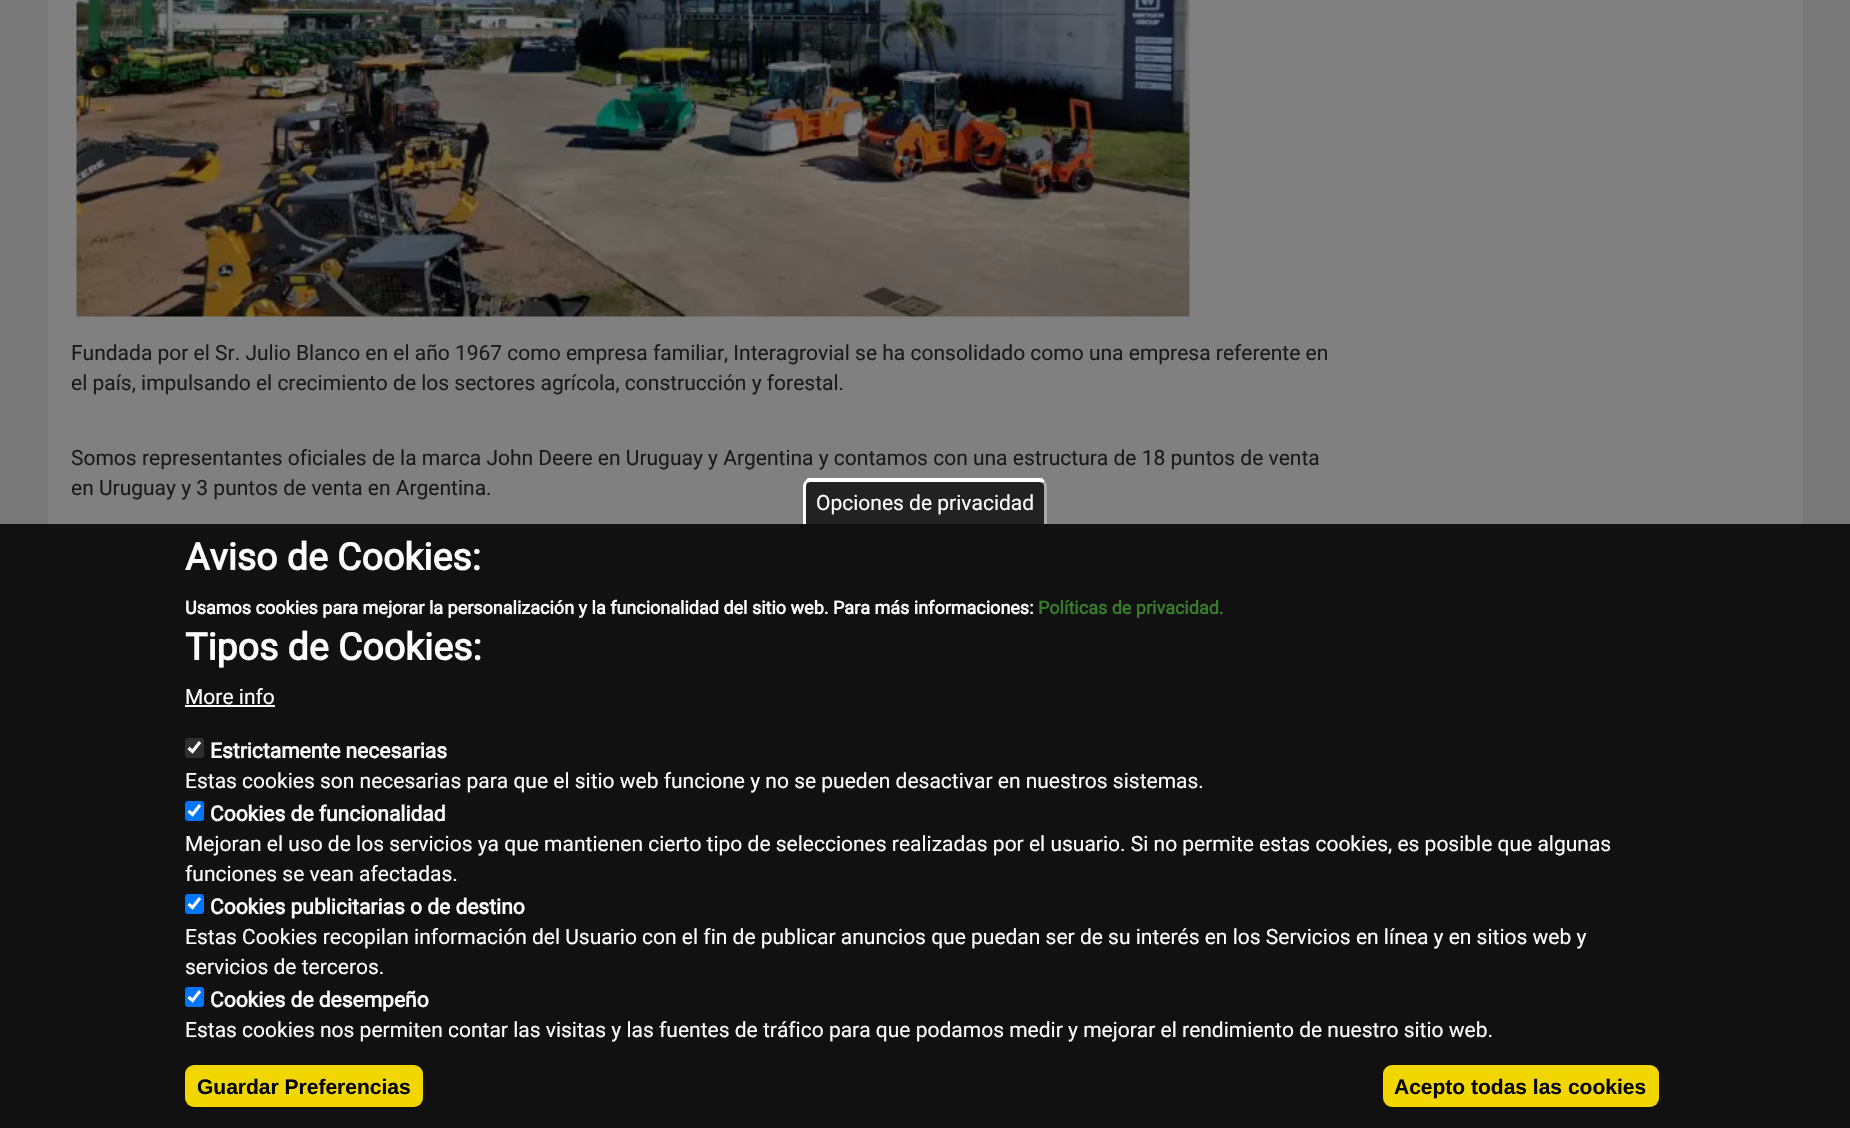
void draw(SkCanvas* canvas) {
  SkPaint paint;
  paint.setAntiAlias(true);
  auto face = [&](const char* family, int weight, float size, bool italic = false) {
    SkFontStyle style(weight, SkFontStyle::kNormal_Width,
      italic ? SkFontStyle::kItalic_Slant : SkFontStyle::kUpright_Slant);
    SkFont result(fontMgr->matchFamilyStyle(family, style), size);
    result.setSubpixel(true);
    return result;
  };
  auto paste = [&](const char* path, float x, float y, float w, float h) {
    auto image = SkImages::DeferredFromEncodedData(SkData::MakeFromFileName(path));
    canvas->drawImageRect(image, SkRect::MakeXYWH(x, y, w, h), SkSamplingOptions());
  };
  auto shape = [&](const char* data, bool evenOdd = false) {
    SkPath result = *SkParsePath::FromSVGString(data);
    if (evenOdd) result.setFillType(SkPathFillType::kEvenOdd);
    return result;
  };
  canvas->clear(0xff787878);
  paint.setColor(0xff808080);
  canvas->drawRect(SkRect::MakeXYWH(48, 0, 1755, 524), paint);
  paste("img/1.png", 76, 0, 1114, 317);
  paint.setColor(0xff111111);
  canvas->drawRect(SkRect::MakeXYWH(0, 524, 1850, 604), paint);
  paint.setColor(0xff222222);
  canvas->drawPath(shape("M811 479H1039C1043.5 479 1047 482.5 1047 487V524H803V487C803 482.5 806.5 479 811 479Z"), paint);
  paint.setColor(0xffffffff);
  canvas->drawPath(shape("M810 482L807 483L805 481L808 478H1042L1045 481L1043 483L1040 482Z"), paint);
  paint.setColor(0xffaaaaaa);
  canvas->drawPath(shape("M1044 524V486C1044 485 1043 484 1043 483L1045 481C1046 482 1047 484 1047 486V524Z"), paint);
  paint.setColor(0xffffffff);
  canvas->drawPath(shape("M803 524V486C803 484 804 482 805 481L807 483C807 484 806 485 806 486V524Z"), paint);
  canvas->drawRect(SkRect::MakeXYWH(185, 705, 90, 2), paint);
  paint.setColor(0xff2f2f2f);
  canvas->drawRoundRect(SkRect::MakeXYWH(185, 738, 19, 20), 3, 3, paint);
  paint.setStroke(true);
  paint.setStrokeWidth(3.1f);
  paint.setColor(0xffffffff);
  canvas->drawPath(shape("M188.5 748L192.5 751.5L200 742"), paint);
  paint.setStroke(false);
  paint.setColor(0xff0075ff);
  canvas->drawRoundRect(SkRect::MakeXYWH(185, 801, 19, 20), 3, 3, paint);
  paint.setStroke(true);
  paint.setColor(0xffffffff);
  canvas->drawPath(shape("M188.5 811L192.5 814.5L200 805"), paint);
  paint.setStroke(false);
  paint.setColor(0xff0075ff);
  canvas->drawRoundRect(SkRect::MakeXYWH(185, 894, 19, 20), 3, 3, paint);
  paint.setStroke(true);
  paint.setColor(0xffffffff);
  canvas->drawPath(shape("M188.5 904L192.5 907.5L200 898"), paint);
  paint.setStroke(false);
  paint.setColor(0xff0075ff);
  canvas->drawRoundRect(SkRect::MakeXYWH(185, 987, 19, 20), 3, 3, paint);
  paint.setStroke(true);
  paint.setColor(0xffffffff);
  canvas->drawPath(shape("M188.5 997L192.5 1000.5L200 991"), paint);
  paint.setStroke(false);
  paint.setColor(0xfff1d600);
  canvas->drawRoundRect(SkRect::MakeXYWH(185, 1065, 238, 42), 9, 9, paint);
  canvas->drawRoundRect(SkRect::MakeXYWH(1383, 1065, 276, 42), 9, 9, paint);
  auto f0 = face("Roboto", 400, 21);
  paint.setColor(0xff1a1a1a);
  {
    const struct { const char* s; float x, y; } items[] = {
      {"Fundada por el Sr. Julio Blanco en el año 1967 como empresa familiar, Interagrovial se ha consolidado como una empresa referente en", 71, 360},
      {"el país, impulsando el crecimiento de los sectores agrícola, construcción y forestal.", 71, 390},
      {"Somos representantes oficiales de la marca John Deere en Uruguay y Argentina y contamos con una estructura de 18 puntos de venta", 71, 465},
      {"en Uruguay y 3 puntos de venta en Argentina.", 71, 495},
    };
    for (auto [s, x, y] : items) {
      canvas->drawString(s, x, y, f0, paint);
    }
  }
  paint.setColor(0xffffffff);
  canvas->drawString("Opciones de privacidad", 816, 510, f0, paint);
  auto f1 = face("Roboto", 700, 37.5f);
  canvas->drawString("Aviso de Cookies:", 185, 570, f1, paint);
  auto f2 = face("Roboto", 700, 18);
  canvas->drawString("Usamos cookies para mejorar la personalización y la funcionalidad del sitio web. Para más informaciones:", 185, 614, f2, paint);
  paint.setColor(0xff377c2b);
  canvas->drawString("Políticas de privacidad.", 1038, 614, f2, paint);
  paint.setColor(0xffffffff);
  canvas->drawString("Tipos de Cookies:", 185, 660, f1, paint);
  canvas->drawString("More info", 185, 704, f0, paint);
  auto f3 = face("Roboto", 700, 21);
  canvas->drawString("Estrictamente necesarias", 210, 758, f3, paint);
  canvas->drawString("Estas cookies son necesarias para que el sitio web funcione y no se pueden desactivar en nuestros sistemas.", 185, 788, f0, paint);
  canvas->drawString("Cookies de funcionalidad", 210, 821, f3, paint);
  canvas->drawString("Mejoran el uso de los servicios ya que mantienen cierto tipo de selecciones realizadas por el usuario. Si no permite estas cookies, es posible que algunas", 185, 851, f0, paint);
  canvas->drawString("funciones se vean afectadas.", 185, 881, f0, paint);
  canvas->drawString("Cookies publicitarias o de destino", 210, 914, f3, paint);
  canvas->drawString("Estas Cookies recopilan información del Usuario con el fin de publicar anuncios que puedan ser de su interés en los Servicios en línea y en sitios web y", 185, 944, f0, paint);
  canvas->drawString("servicios de terceros.", 185, 974, f0, paint);
  canvas->drawString("Cookies de desempeño", 210, 1007, f3, paint);
  canvas->drawString("Estas cookies nos permiten contar las visitas y las fuentes de tráfico para que podamos medir y mejorar el rendimiento de nuestro sitio web.", 185, 1037, f0, paint);
  auto f4 = face("Liberation Sans", 700, 21);
  paint.setColor(0xff000000);
  canvas->drawString("Guardar Preferencias", 197, 1094, f4, paint);
  canvas->drawString("Acepto todas las cookies", 1394, 1094, f4, paint);
}
